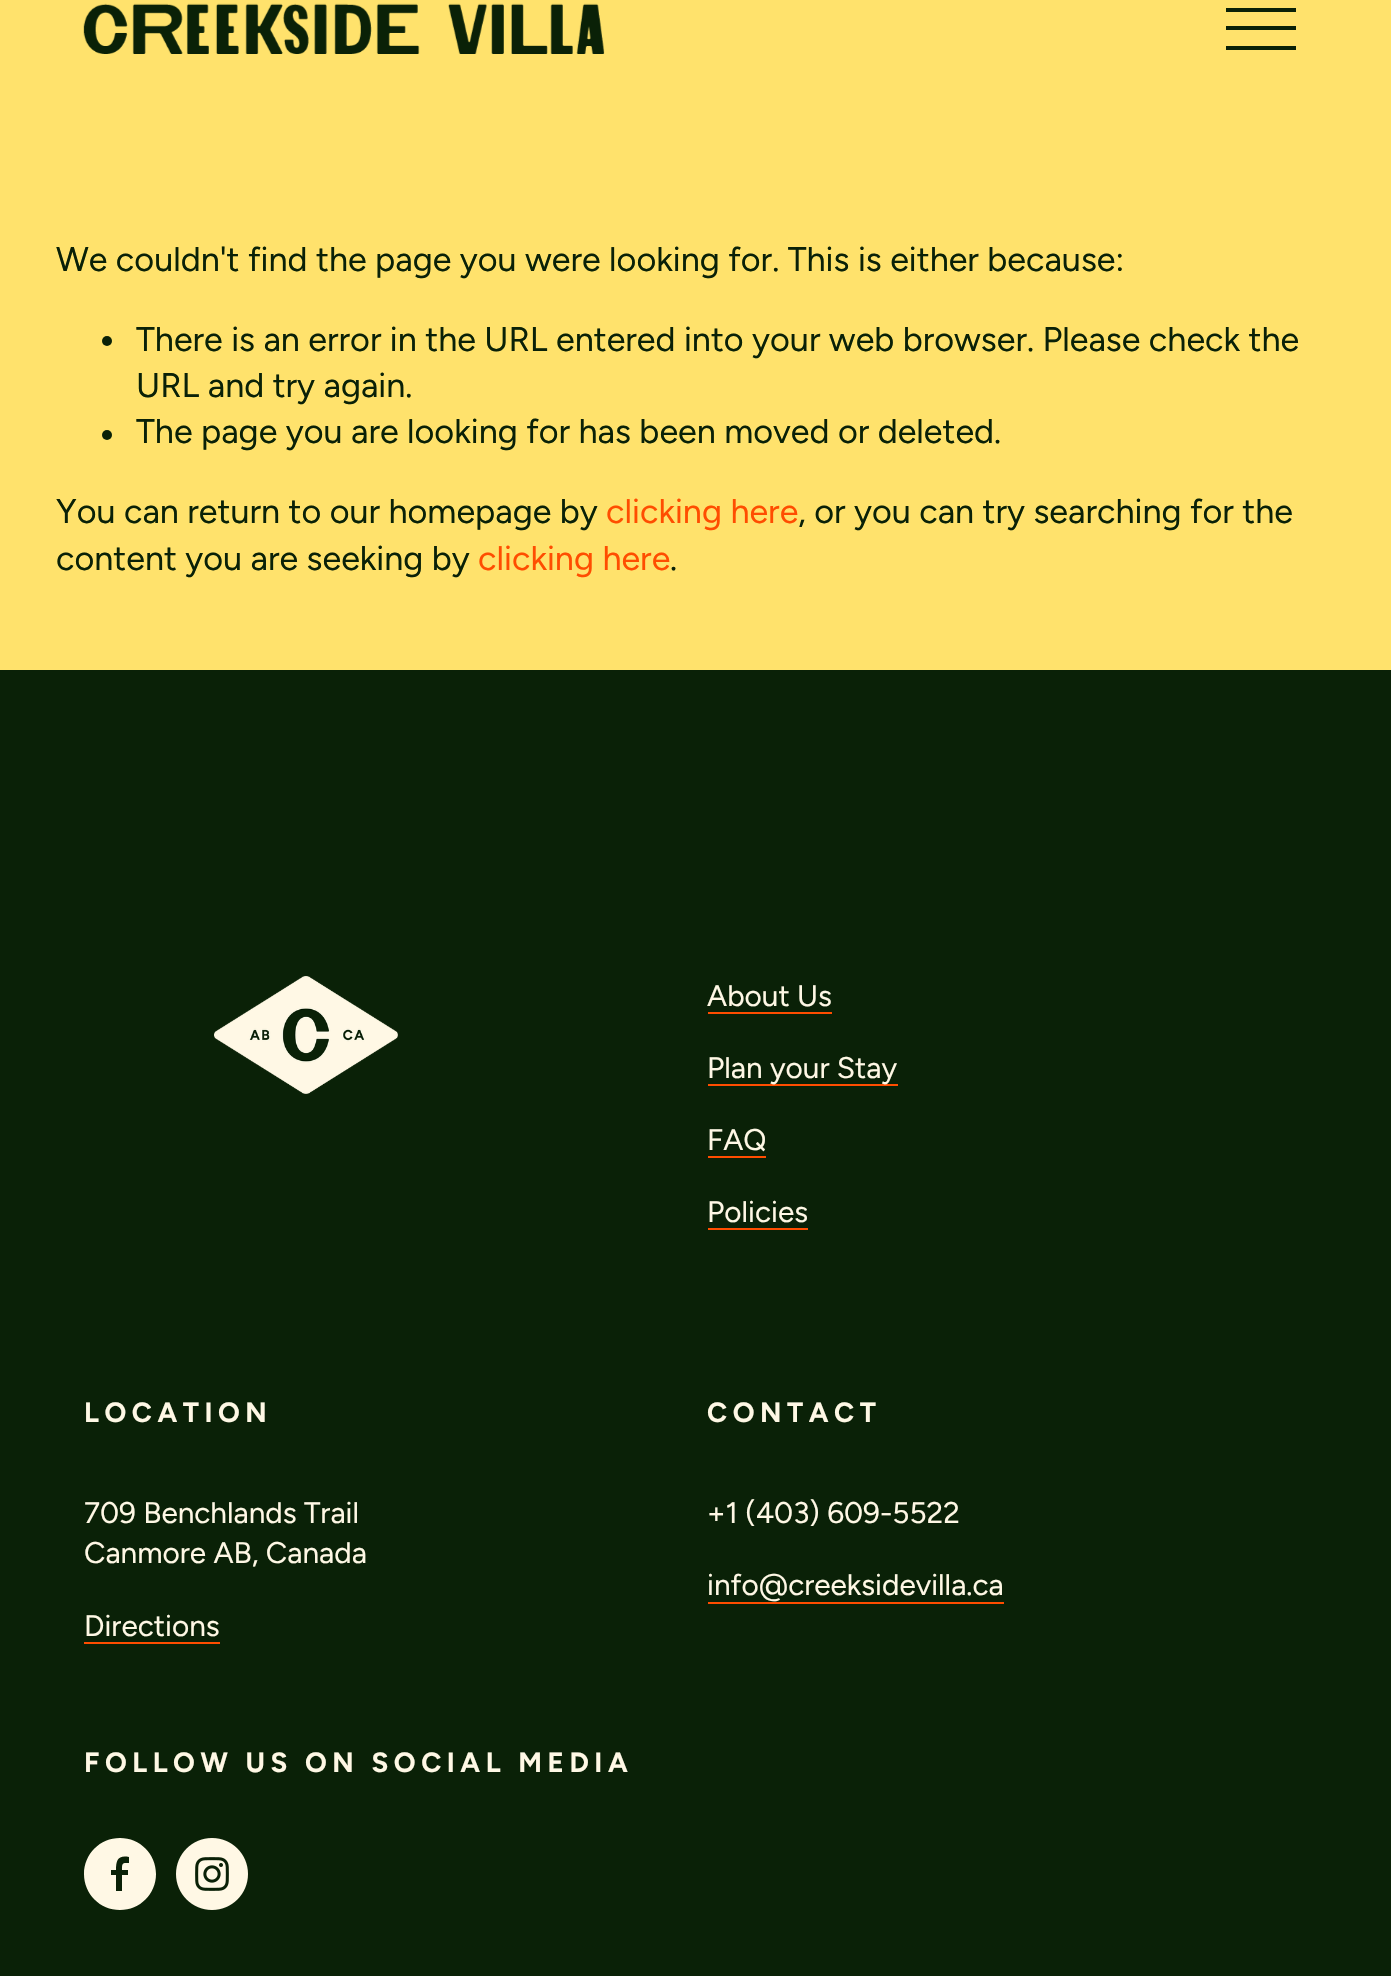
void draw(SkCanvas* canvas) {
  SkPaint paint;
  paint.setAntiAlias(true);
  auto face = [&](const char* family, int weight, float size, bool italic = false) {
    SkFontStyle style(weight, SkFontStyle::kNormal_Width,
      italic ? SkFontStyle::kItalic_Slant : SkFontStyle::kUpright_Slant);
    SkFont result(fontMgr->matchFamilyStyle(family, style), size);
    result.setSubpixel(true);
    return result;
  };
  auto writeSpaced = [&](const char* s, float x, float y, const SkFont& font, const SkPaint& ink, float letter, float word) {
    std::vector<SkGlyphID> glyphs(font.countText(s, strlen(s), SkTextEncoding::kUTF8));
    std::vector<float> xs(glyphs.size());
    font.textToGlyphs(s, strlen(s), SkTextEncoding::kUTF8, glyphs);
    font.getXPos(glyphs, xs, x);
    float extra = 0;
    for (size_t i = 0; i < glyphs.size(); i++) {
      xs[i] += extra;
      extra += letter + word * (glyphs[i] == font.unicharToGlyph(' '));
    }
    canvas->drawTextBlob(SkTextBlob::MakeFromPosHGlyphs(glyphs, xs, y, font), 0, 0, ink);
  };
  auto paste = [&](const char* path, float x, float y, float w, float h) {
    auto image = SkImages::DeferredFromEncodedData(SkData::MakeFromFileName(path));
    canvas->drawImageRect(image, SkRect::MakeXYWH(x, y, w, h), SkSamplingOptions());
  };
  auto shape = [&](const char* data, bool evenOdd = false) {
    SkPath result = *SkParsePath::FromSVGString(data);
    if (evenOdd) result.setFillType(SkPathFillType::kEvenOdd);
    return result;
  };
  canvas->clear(0xffffe26c);
  paste("img/1.png", 83, 3, 522, 51);
  {
    const struct { float x, y, w, h; SkColor color; } items[] = {
      {1226, 8, 70, 4, 0xff0a2107},
      {1226, 26, 70, 4, 0xff0a2107},
      {1226, 46, 70, 4, 0xff0a2107},
    };
    for (auto [x, y, w, h, color] : items) {
      paint.setColor(color);
      canvas->drawRect(SkRect::MakeXYWH(x, y, w, h), paint);
    }
  }
  canvas->drawCircle(107, 341, 5, paint);
  canvas->drawCircle(107, 435, 5, paint);
  canvas->drawRect(SkRect::MakeXYWH(0, 670, 1391, 1306), paint);
  paste("img/2.png", 214, 976, 184, 118);
  {
    const struct { float x, y, w, h; SkColor color; } items[] = {
      {708, 1012, 124, 2, 0xffff4d00},
      {708, 1084, 190, 2, 0xffff4d00},
      {708, 1156, 58, 2, 0xffff4d00},
      {708, 1228, 100, 2, 0xffff4d00},
      {84, 1642, 136, 2, 0xffff4d00},
      {708, 1602, 296, 2, 0xffff4d00},
    };
    for (auto [x, y, w, h, color] : items) {
      paint.setColor(color);
      canvas->drawRect(SkRect::MakeXYWH(x, y, w, h), paint);
    }
  }
  paint.setColor(0xfffff8e5);
  canvas->drawPath(shape("M120 1838C100 1838 84 1854 84 1874C84 1894 100 1910 120 1910C140 1910 156 1894 156 1874C156 1854 140 1838 120 1838ZM129 1863V1857C118 1855 116 1860 116 1870H111V1875H116V1891H122V1875H128V1870H122C122 1863 122 1863 129 1863Z", true), paint);
  paste("img/3.png", 176, 1838, 72, 72);
  auto f0 = face("Figtree", 400, 34.15f);
  paint.setColor(0xff0a2107);
  {
    const struct { const char* s; float x, y; } items[] = {
      {"We couldn't find the page you were looking for. This is either because:", 56, 271},
      {"There is an error in the URL entered into your web browser. Please check the", 136, 351},
      {"URL and try again.", 136, 397},
      {"The page you are looking for has been moved or deleted.", 136, 443},
      {"You can return to our homepage by", 56, 523},
    };
    for (auto [s, x, y] : items) {
      canvas->drawString(s, x, y, f0, paint);
    }
  }
  paint.setColor(0xffff4d00);
  canvas->drawString("clicking here", 606, 523, f0, paint);
  paint.setColor(0xff0a2107);
  canvas->drawString(", or you can try searching for the", 798, 523, f0, paint);
  canvas->drawString("content you are seeking by", 56, 570, f0, paint);
  paint.setColor(0xffff4d00);
  canvas->drawString("clicking here", 478, 570, f0, paint);
  paint.setColor(0xff0a2107);
  canvas->drawString(".", 670, 570, f0, paint);
  auto f1 = face("Figtree", 400, 29.75f);
  paint.setColor(0xfffff8e5);
  {
    const struct { const char* s; float x, y; } items[] = {
      {"About Us", 707, 1006},
      {"Plan your Stay", 707, 1078},
      {"FAQ", 707, 1150},
      {"Policies", 707, 1222},
    };
    for (auto [s, x, y] : items) {
      canvas->drawString(s, x, y, f1, paint);
    }
  }
  auto f2 = face("Figtree", 700, 27.7f);
  writeSpaced("LOCATION", 84, 1422, f2, paint, 5.55f, 0);
  {
    const struct { const char* s; float x, y; } items[] = {
      {"709 Benchlands Trail", 84, 1523},
      {"Canmore AB, Canada", 84, 1563},
      {"Directions", 84, 1636},
    };
    for (auto [s, x, y] : items) {
      canvas->drawString(s, x, y, f1, paint);
    }
  }
  writeSpaced("CONTACT", 707, 1422, f2, paint, 5.55f, 0);
  canvas->drawString("+1 (403) 609-5522", 707, 1523, f1, paint);
  canvas->drawString("info@creeksidevilla.ca", 707, 1595, f1, paint);
  writeSpaced("FOLLOW US ON SOCIAL MEDIA", 84, 1772, f2, paint, 5.55f, 0);
}
